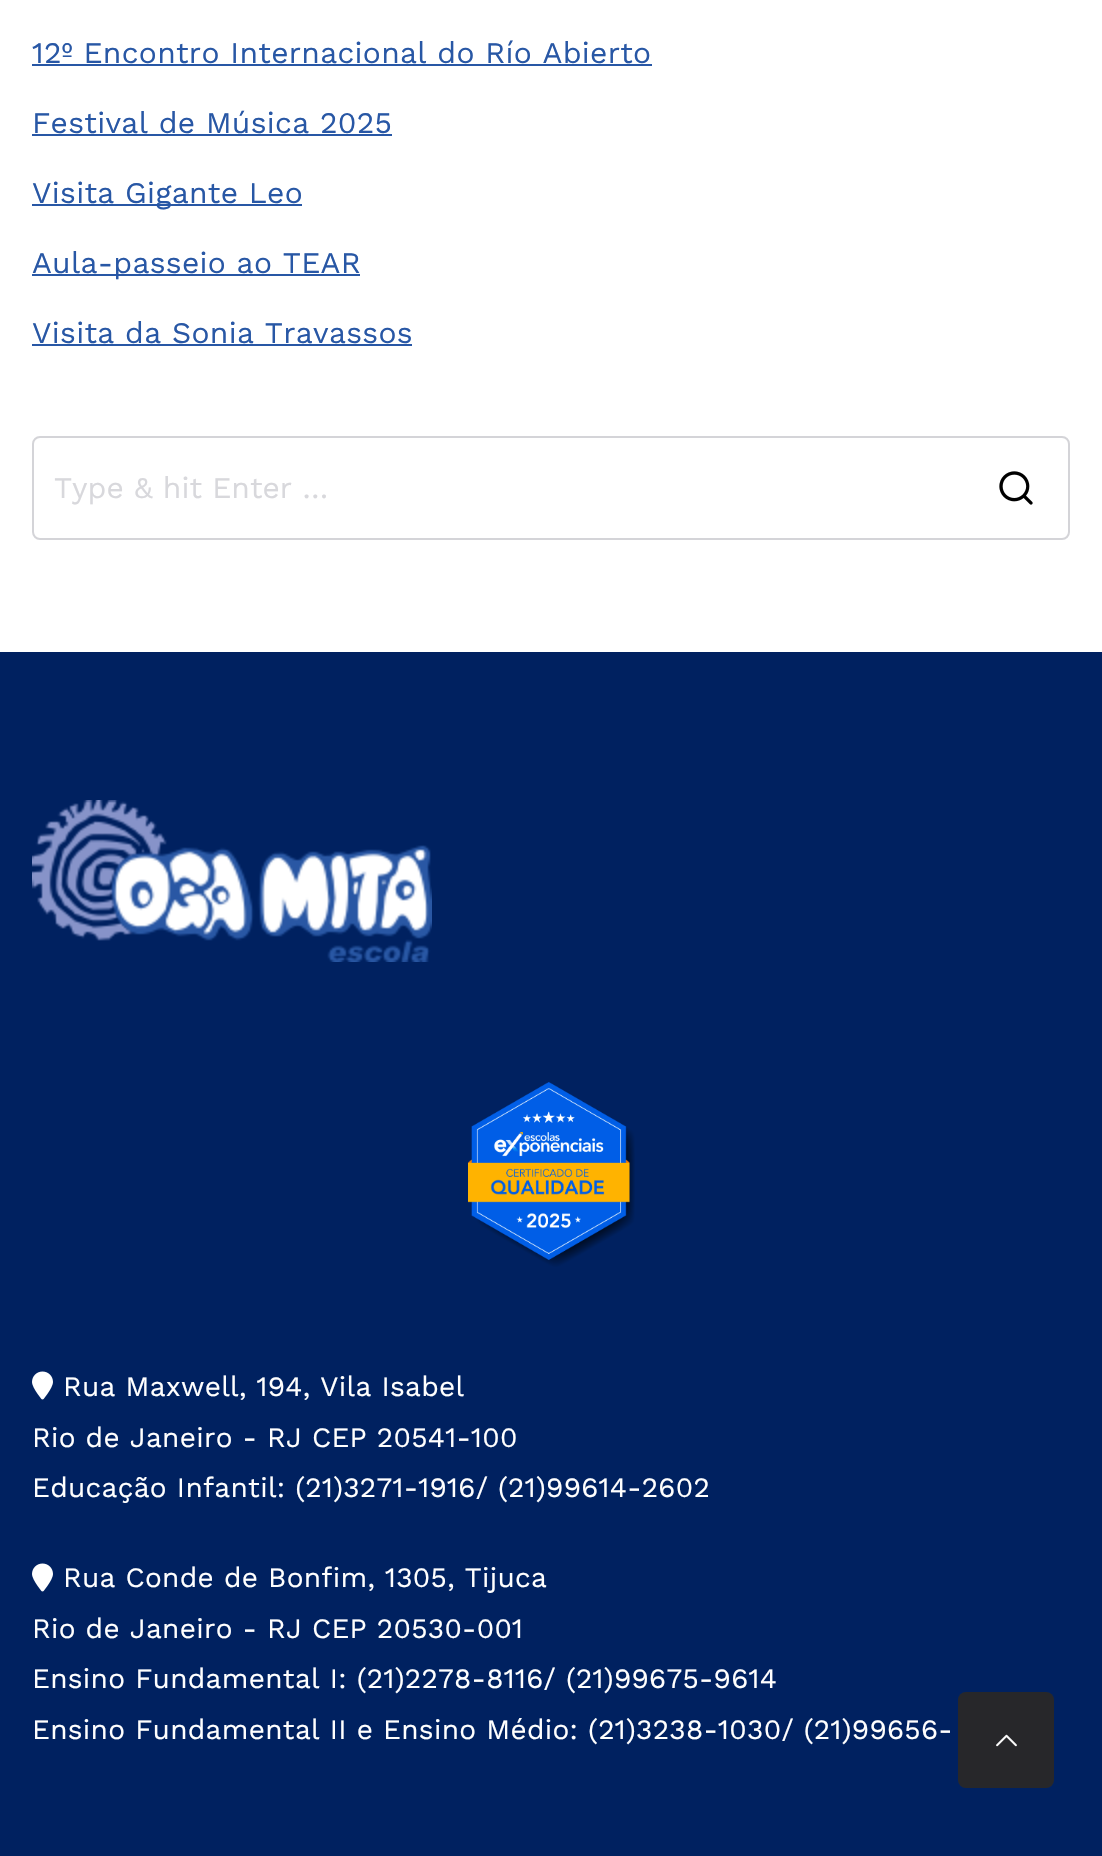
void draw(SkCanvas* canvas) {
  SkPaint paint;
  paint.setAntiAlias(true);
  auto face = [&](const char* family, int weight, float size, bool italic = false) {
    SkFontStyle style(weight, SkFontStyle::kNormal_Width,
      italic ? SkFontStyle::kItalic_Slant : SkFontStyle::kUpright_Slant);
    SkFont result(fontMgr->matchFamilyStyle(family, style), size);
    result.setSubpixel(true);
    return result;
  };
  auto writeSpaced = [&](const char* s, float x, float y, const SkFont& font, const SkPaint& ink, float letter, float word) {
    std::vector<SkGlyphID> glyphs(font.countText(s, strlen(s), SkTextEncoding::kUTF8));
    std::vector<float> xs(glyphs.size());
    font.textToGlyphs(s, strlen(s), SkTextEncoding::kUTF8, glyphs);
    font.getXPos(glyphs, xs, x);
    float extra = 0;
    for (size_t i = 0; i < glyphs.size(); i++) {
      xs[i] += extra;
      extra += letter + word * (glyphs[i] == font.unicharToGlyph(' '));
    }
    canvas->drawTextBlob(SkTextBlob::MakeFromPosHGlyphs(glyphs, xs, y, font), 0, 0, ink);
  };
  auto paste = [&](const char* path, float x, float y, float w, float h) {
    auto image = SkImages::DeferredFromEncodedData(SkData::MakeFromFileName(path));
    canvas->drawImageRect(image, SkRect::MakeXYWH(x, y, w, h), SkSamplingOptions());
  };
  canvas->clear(0xffffffff);
  {
    const struct { float x, y, w, h; SkColor color; } items[] = {
      {32, 64, 620, 2, 0xff2857a5},
      {32, 134, 360, 2, 0xff2857a5},
      {32, 204, 270, 2, 0xff2857a5},
      {32, 274, 328, 2, 0xff2857a5},
      {32, 344, 380, 2, 0xff2857a5},
    };
    for (auto [x, y, w, h, color] : items) {
      paint.setColor(color);
      canvas->drawRect(SkRect::MakeXYWH(x, y, w, h), paint);
    }
  }
  paint.setStroke(true);
  paint.setStrokeWidth(2);
  paint.setColor(0xffd4d4d8);
  canvas->drawRoundRect(SkRect::MakeXYWH(33, 437, 1036, 102), 7, 7, paint);
  paste("img/1.png", 999, 471, 34, 34);
  paint.setStroke(false);
  paint.setColor(0xff002160);
  canvas->drawRect(SkRect::MakeXYWH(0, 652, 1102, 1204), paint);
  paste("img/2.png", 32, 800, 400, 162);
  paste("img/3.png", 468, 1082, 167, 185);
  paste("img/4.png", 32, 1371, 21, 29);
  paste("img/4.png", 32, 1563, 21, 29);
  paint.setColor(0xff27272a);
  canvas->drawRoundRect(SkRect::MakeXYWH(958, 1692, 96, 96), 8, 8, paint);
  paste("img/5.png", 996, 1734, 21, 13);
  auto f0 = face("Work Sans", 400, 30);
  paint.setColor(0xff2857a5);
  {
    const struct { const char* s; float x, y; } items[] = {
      {"12º Encontro Internacional do Río Abierto", 32, 63},
      {"Festival de Música 2025", 32, 133},
      {"Visita Gigante Leo", 32, 203},
      {"Aula-passeio ao TEAR", 32, 273},
      {"Visita da Sonia Travassos", 32, 343},
    };
    for (auto [s, x, y] : items) {
      writeSpaced(s, x, y, f0, paint, 0.3f, 0);
    }
  }
  paint.setColor(0xffd8d8dc);
  canvas->drawString("Type & hit Enter …", 54, 498, f0, paint);
  auto f1 = face("Work Sans", 400, 28);
  paint.setColor(0xffffffff);
  {
    const struct { const char* s; float x, y; } items[] = {
      {"Rua Maxwell, 194, Vila Isabel", 63, 1396},
      {"Rio de Janeiro - RJ CEP 20541-100", 32, 1447},
      {"Educação Infantil: (21)3271-1916/ (21)99614-2602", 32, 1497},
      {"Rua Conde de Bonfim, 1305, Tijuca", 63, 1587},
      {"Rio de Janeiro - RJ CEP 20530-001", 32, 1638},
      {"Ensino Fundamental I: (21)2278-8116/ (21)99675-9614", 32, 1688},
      {"Ensino Fundamental II e Ensino Médio: (21)3238-1030/ (21)99656-", 32, 1739},
    };
    for (auto [s, x, y] : items) {
      writeSpaced(s, x, y, f1, paint, 0.3f, 0);
    }
  }
}
